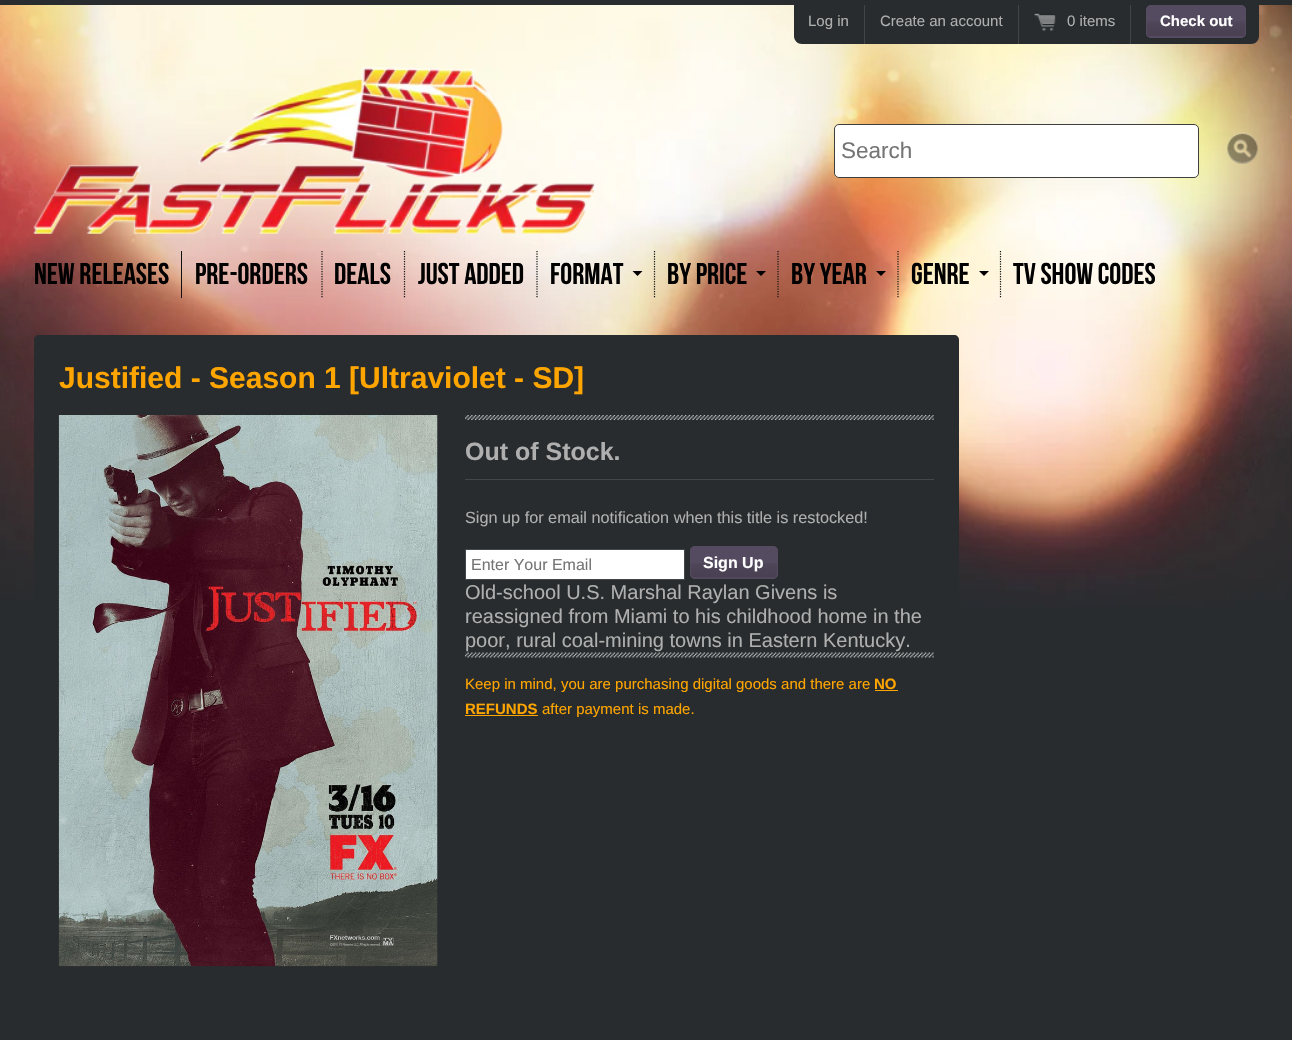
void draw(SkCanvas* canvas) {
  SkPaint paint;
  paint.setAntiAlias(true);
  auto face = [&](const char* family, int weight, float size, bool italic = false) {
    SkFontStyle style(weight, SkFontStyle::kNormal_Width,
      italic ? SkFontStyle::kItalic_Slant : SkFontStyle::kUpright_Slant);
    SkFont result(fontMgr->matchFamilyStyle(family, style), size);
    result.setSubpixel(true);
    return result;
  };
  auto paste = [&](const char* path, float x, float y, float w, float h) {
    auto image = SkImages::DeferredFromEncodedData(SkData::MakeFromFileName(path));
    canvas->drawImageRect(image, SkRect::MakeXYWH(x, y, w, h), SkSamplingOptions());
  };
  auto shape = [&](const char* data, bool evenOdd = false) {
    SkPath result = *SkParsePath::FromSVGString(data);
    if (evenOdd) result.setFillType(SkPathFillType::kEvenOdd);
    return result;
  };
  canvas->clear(0xff282c2e);
  paste("img/1.png", 0, 5, 1292, 604);
  paint.setColor(0xff282c2e);
  canvas->drawPath(shape("M794 5H1259V36C1259 40.5 1255.5 44 1251 44H802C797.5 44 794 40.5 794 36Z"), paint);
  {
    const struct { float x, y, w, h; SkColor color; } items[] = {
      {864, 5, 1, 39, 0xff444444},
      {1018, 5, 1, 39, 0xff444444},
      {1130, 5, 1, 39, 0xff444444},
    };
    for (auto [x, y, w, h, color] : items) {
      paint.setColor(color);
      canvas->drawRect(SkRect::MakeXYWH(x, y, w, h), paint);
    }
  }
  paste("img/2.png", 1033, 12, 23, 19);
  paint.setColor(0xff554b60);
  canvas->drawRoundRect(SkRect::MakeXYWH(1146, 5, 100, 33), 5, 5, paint);
  paste("img/3.png", 1146, 21, 100, 15);
  paint.setStroke(true);
  paint.setStrokeWidth(1);
  canvas->drawRoundRect(SkRect::MakeXYWH(1146.5f, 5.5f, 99, 32), 4.5f, 4.5f, paint);
  paste("img/4.png", 33, 67, 563, 167);
  paint.setStroke(false);
  paint.setColor(0xffffffff);
  canvas->drawRoundRect(SkRect::MakeXYWH(834.5f, 124.5f, 364, 53), 4.5f, 4.5f, paint);
  paint.setStroke(true);
  paint.setColor(0xff3e3e3c);
  canvas->drawRoundRect(SkRect::MakeXYWH(834.5f, 124.5f, 364, 53), 4.5f, 4.5f, paint);
  paste("img/5.png", 1227, 132, 31, 32);
  paint.setStroke(false);
  paint.setColor(0xff111111);
  canvas->drawRect(SkRect::MakeXYWH(181, 251, 1, 47), paint);
  paint.setStroke(true);
  paint.setStrokeWidth(1.2f);
  paint.setPathEffect(SkDashPathEffect::Make({{1.25f, 1.25f}}, 0));
  canvas->drawPath(shape("M322 251V297.5"), paint);
  paint.setPathEffect(nullptr);
  paint.setPathEffect(SkDashPathEffect::Make({{1.25f, 1.25f}}, 0));
  canvas->drawPath(shape("M404.5 251V297.5"), paint);
  paint.setPathEffect(nullptr);
  paint.setPathEffect(SkDashPathEffect::Make({{1.25f, 1.25f}}, 0));
  canvas->drawPath(shape("M537 251V297.5"), paint);
  paint.setPathEffect(nullptr);
  paint.setPathEffect(SkDashPathEffect::Make({{1.25f, 1.25f}}, 0));
  canvas->drawPath(shape("M654.5 251V297.5"), paint);
  paint.setPathEffect(nullptr);
  paint.setStroke(false);
  paint.setColor(0xff000000);
  canvas->drawPath(shape("M632.5 271H642.5L637.5 276Z"), paint);
  paint.setStroke(true);
  paint.setColor(0xff111111);
  paint.setPathEffect(SkDashPathEffect::Make({{1.25f, 1.25f}}, 0));
  canvas->drawPath(shape("M778 251V297.5"), paint);
  paint.setPathEffect(nullptr);
  paint.setStroke(false);
  paint.setColor(0xff000000);
  canvas->drawPath(shape("M756 271H766L761 276Z"), paint);
  paint.setStroke(true);
  paint.setColor(0xff111111);
  paint.setPathEffect(SkDashPathEffect::Make({{1.25f, 1.25f}}, 0));
  canvas->drawPath(shape("M898 251V297.5"), paint);
  paint.setPathEffect(nullptr);
  paint.setStroke(false);
  paint.setColor(0xff000000);
  canvas->drawPath(shape("M876 271H886L881 276Z"), paint);
  paint.setStroke(true);
  paint.setColor(0xff111111);
  paint.setPathEffect(SkDashPathEffect::Make({{1.25f, 1.25f}}, 0));
  canvas->drawPath(shape("M1000.5 251V297.5"), paint);
  paint.setPathEffect(nullptr);
  paint.setStroke(false);
  paint.setColor(0xff000000);
  canvas->drawPath(shape("M979 271H989L984 276Z"), paint);
  paint.setColor(0xff282c2e);
  canvas->drawPath(shape("M39 335H954C957 335 959 337 959 340V1028H34V340C34 337 36 335 39 335Z"), paint);
  paste("img/6.png", 58, 415, 380, 552);
  paste("img/7.png", 465, 415, 469, 5);
  paint.setColor(0xff41474a);
  canvas->drawRect(SkRect::MakeXYWH(465, 479, 469, 1), paint);
  paint.setColor(0xffffffff);
  canvas->drawRect(SkRect::MakeXYWH(465.5f, 549.5f, 219, 30), paint);
  paint.setStroke(true);
  paint.setStrokeWidth(1);
  paint.setColor(0xff41474a);
  canvas->drawRect(SkRect::MakeXYWH(465.5f, 549.5f, 219, 30), paint);
  paint.setStroke(false);
  paint.setColor(0xff554b60);
  canvas->drawRoundRect(SkRect::MakeXYWH(690, 546, 88, 33), 5, 5, paint);
  paste("img/8.png", 690, 563, 87, 15);
  paint.setStroke(true);
  canvas->drawRoundRect(SkRect::MakeXYWH(690.5f, 546.5f, 87, 32), 4.5f, 4.5f, paint);
  paste("img/9.png", 465, 652, 469, 6);
  paint.setStroke(false);
  paint.setColor(0xffffa500);
  canvas->drawRect(SkRect::MakeXYWH(875, 690, 23, 1), paint);
  canvas->drawRect(SkRect::MakeXYWH(465, 715, 73, 1), paint);
  auto f0 = face("Liberation Sans", 400, 15);
  paint.setColor(0xffafafaf);
  {
    const struct { const char* s; float x, y; } items[] = {
      {"Log in", 808, 26},
      {"Create an account", 880, 26},
      {"0 items", 1067, 26},
    };
    for (auto [s, x, y] : items) {
      canvas->drawString(s, x, y, f0, paint);
    }
  }
  auto f1 = face("Liberation Sans", 700, 15);
  paint.setColor(0xffffffff);
  canvas->drawString("Check out", 1160, 26, f1, paint);
  auto f2 = face("Liberation Sans", 400, 22.5f);
  paint.setColor(0xff757575);
  canvas->drawString("Search", 841, 158, f2, paint);
  auto f3 = face("Bebas Neue", 400, 30);
  paint.setColor(0xff000000);
  {
    const struct { const char* s; float x, y; } items[] = {
      {"New Releases", 34, 284},
      {"Pre-orders", 195, 284},
      {"Deals", 334, 284},
      {"Just Added", 418, 284},
      {"Format", 550, 284},
      {"By Price", 667, 284},
      {"By Year", 791, 284},
      {"Genre", 911, 284},
      {"TV Show Codes", 1013, 284},
    };
    for (auto [s, x, y] : items) {
      canvas->drawString(s, x, y, f3, paint);
    }
  }
  auto f4 = face("Liberation Sans", 700, 30);
  paint.setColor(0xffffa500);
  canvas->drawString("Justified - Season 1 [Ultraviolet - SD]", 59, 388, f4, paint);
  auto f5 = face("Liberation Sans", 700, 25);
  paint.setColor(0xffafafaf);
  canvas->drawString("Out of Stock.", 465, 460, f5, paint);
  auto f6 = face("Liberation Sans", 400, 16.25f);
  canvas->drawString("Sign up for email notification when this title is restocked!", 465, 523, f6, paint);
  auto f7 = face("Liberation Sans", 400, 16);
  paint.setColor(0xff757575);
  canvas->drawString("Enter Your Email", 471, 570, f7, paint);
  auto f8 = face("Liberation Sans", 700, 16);
  paint.setColor(0xffffffff);
  canvas->drawString("Sign Up", 703, 568, f8, paint);
  auto f9 = face("Liberation Sans", 400, 20);
  paint.setColor(0xffafafaf);
  {
    const struct { const char* s; float x, y; } items[] = {
      {"Old-school U.S. Marshal Raylan Givens is", 465, 599},
      {"reassigned from Miami to his childhood home in the", 465, 623},
      {"poor, rural coal-mining towns in Eastern Kentucky.", 465, 647},
    };
    for (auto [s, x, y] : items) {
      canvas->drawString(s, x, y, f9, paint);
    }
  }
  paint.setColor(0xffffa500);
  canvas->drawString("Keep in mind, you are purchasing digital goods and there are", 465, 689, f0, paint);
  canvas->drawString("NO", 874, 689, f1, paint);
  canvas->drawString("REFUNDS", 465, 714, f1, paint);
  canvas->drawString("after payment is made.", 542, 714, f0, paint);
}
